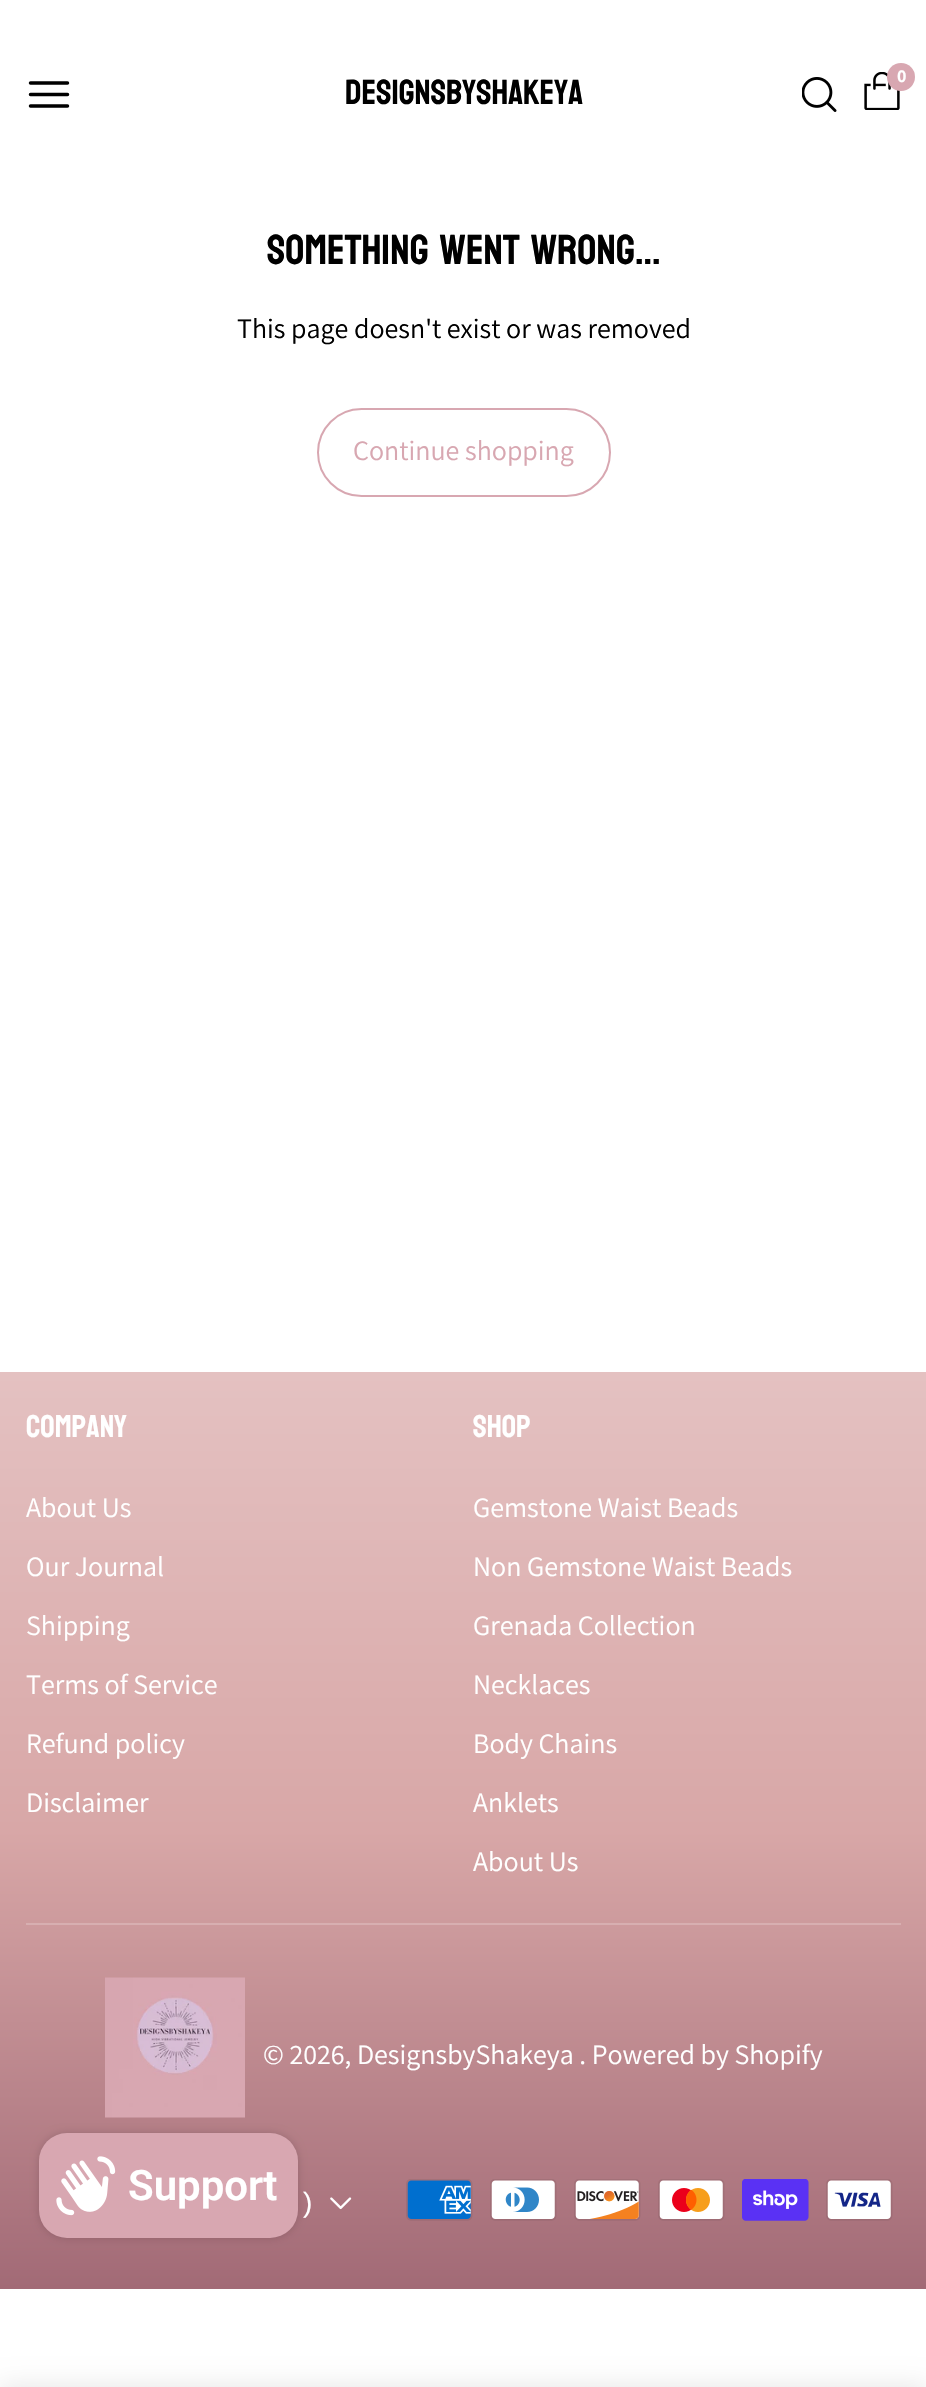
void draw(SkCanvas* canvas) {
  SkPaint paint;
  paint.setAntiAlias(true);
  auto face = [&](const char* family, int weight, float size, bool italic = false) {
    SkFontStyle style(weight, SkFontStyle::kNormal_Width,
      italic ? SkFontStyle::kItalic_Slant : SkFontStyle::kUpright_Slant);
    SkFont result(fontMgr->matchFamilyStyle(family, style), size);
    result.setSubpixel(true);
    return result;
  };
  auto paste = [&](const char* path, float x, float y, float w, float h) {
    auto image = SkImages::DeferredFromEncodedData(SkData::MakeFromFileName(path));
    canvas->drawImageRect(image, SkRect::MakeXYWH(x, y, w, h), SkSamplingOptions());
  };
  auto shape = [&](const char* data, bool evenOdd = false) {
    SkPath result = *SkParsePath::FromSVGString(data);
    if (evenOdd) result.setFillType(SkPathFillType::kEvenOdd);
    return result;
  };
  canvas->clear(0xffffffff);
  paste("img/1.png", 802, 77, 35, 35);
  paste("img/2.png", 864, 72, 36, 38);
  paint.setColor(0xffd8a7b1);
  canvas->drawCircle(901, 77, 14, paint);
  paint.setStroke(true);
  paint.setStrokeWidth(3.5f);
  paint.setStrokeCap(SkPaint::kRound_Cap);
  paint.setColor(0xff000000);
  canvas->drawPath(shape("M30.5 83H67.5M30.5 94.5H67.5M30.5 106H67.5"), paint);
  paint.setStrokeWidth(2);
  paint.setStrokeCap(SkPaint::kButt_Cap);
  paint.setColor(0xffd8a7b1);
  canvas->drawRoundRect(SkRect::MakeXYWH(318, 409, 292, 87), 43.5f, 43.5f, paint);
  paint.setStroke(false);
  {
    const SkColor colors[] = {0xffe4c1c1, 0xffd8a7a7, 0xffa26a76};
    const float stops[] = {0, 0.5f, 1};
    const SkPoint ends[] = {{464, 1372}, {464, 2289}};
    paint.setShader(SkGradientShader::MakeLinear(ends, colors, stops, 3, SkTileMode::kClamp));
    paint.setAlpha(255);
  }
  canvas->drawRect(SkRect::MakeXYWH(0, 1372, 926, 917), paint);
  paint.setShader(nullptr);
  paint.setColor(0xffd7afb1);
  canvas->drawRect(SkRect::MakeXYWH(26, 1923, 875, 2), paint);
  paste("img/3.png", 105, 1977, 140, 141);
  paste("img/4.png", 330, 2197, 22, 13);
  paste("img/5.png", 406, 2179, 67, 42);
  paste("img/6.png", 490, 2179, 67, 42);
  paste("img/7.png", 574, 2179, 67, 42);
  paste("img/8.png", 658, 2179, 67, 42);
  paste("img/9.png", 742, 2179, 67, 42);
  paste("img/10.png", 826, 2179, 67, 42);
  paint.setColor(0x26000000);
  paint.setMaskFilter(SkMaskFilter::MakeBlur(kNormal_SkBlurStyle, 4.5f));
  canvas->drawRoundRect(SkRect::MakeXYWH(39, 2133, 259, 105), 28, 28, paint);
  paint.setMaskFilter(nullptr);
  paint.setColor(0xffd8a7b1);
  canvas->drawRoundRect(SkRect::MakeXYWH(39, 2133, 259, 105), 28, 28, paint);
  paste("img/11.png", 56, 2156, 60, 60);
  paint.setColor(0x1a000000);
  paint.setMaskFilter(SkMaskFilter::MakeBlur(kNormal_SkBlurStyle, 13));
  canvas->drawRect(SkRect::MakeXYWH(0, 2387, 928, 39), paint);
  paint.setMaskFilter(nullptr);
  auto f0 = face("Assistant", 700, 18);
  paint.setColor(0xffffffff);
  canvas->drawString("0", 897, 82, f0, paint);
  auto f1 = face("Bayon", 400, 35);
  paint.setColor(0xff000000);
  canvas->drawString("DesignsbyShakeya", 345, 104, f1, paint);
  auto f2 = face("Bayon", 400, 42);
  canvas->drawString("Something went wrong...", 267, 264, f2, paint);
  auto f3 = face("Assistant", 400, 28);
  canvas->drawString("This page doesn't exist or was removed", 237, 338, f3, paint);
  paint.setColor(0xffd8a7b1);
  canvas->drawString("Continue shopping", 353, 460, f3, paint);
  auto f4 = face("Bayon", 400, 31.5f);
  paint.setColor(0xffffffff);
  canvas->drawString("Company", 26, 1437, f4, paint);
  {
    const struct { const char* s; float x, y; } items[] = {
      {"About Us", 26, 1517},
      {"Our Journal", 26, 1576},
      {"Shipping", 26, 1635},
      {"Terms of Service", 26, 1694},
      {"Refund policy", 26, 1753},
      {"Disclaimer", 26, 1812},
    };
    for (auto [s, x, y] : items) {
      canvas->drawString(s, x, y, f3, paint);
    }
  }
  canvas->drawString("Shop", 473, 1437, f4, paint);
  {
    const struct { const char* s; float x, y; } items[] = {
      {"Gemstone Waist Beads", 473, 1517},
      {"Non Gemstone Waist Beads", 473, 1576},
      {"Grenada Collection", 473, 1635},
      {"Necklaces", 473, 1694},
      {"Body Chains", 473, 1753},
      {"Anklets", 473, 1812},
      {"About Us", 473, 1871},
      {"© 2026, DesignsbyShakeya . Powered by Shopify", 263, 2064},
    };
    for (auto [s, x, y] : items) {
      canvas->drawString(s, x, y, f3, paint);
    }
  }
  auto f5 = face("Liberation Sans", 400, 28);
  canvas->drawString(")", 303, 2212, f5, paint);
  auto f6 = face("Roboto", 600, 42);
  canvas->drawString("Support", 128, 2200, f6, paint);
}
